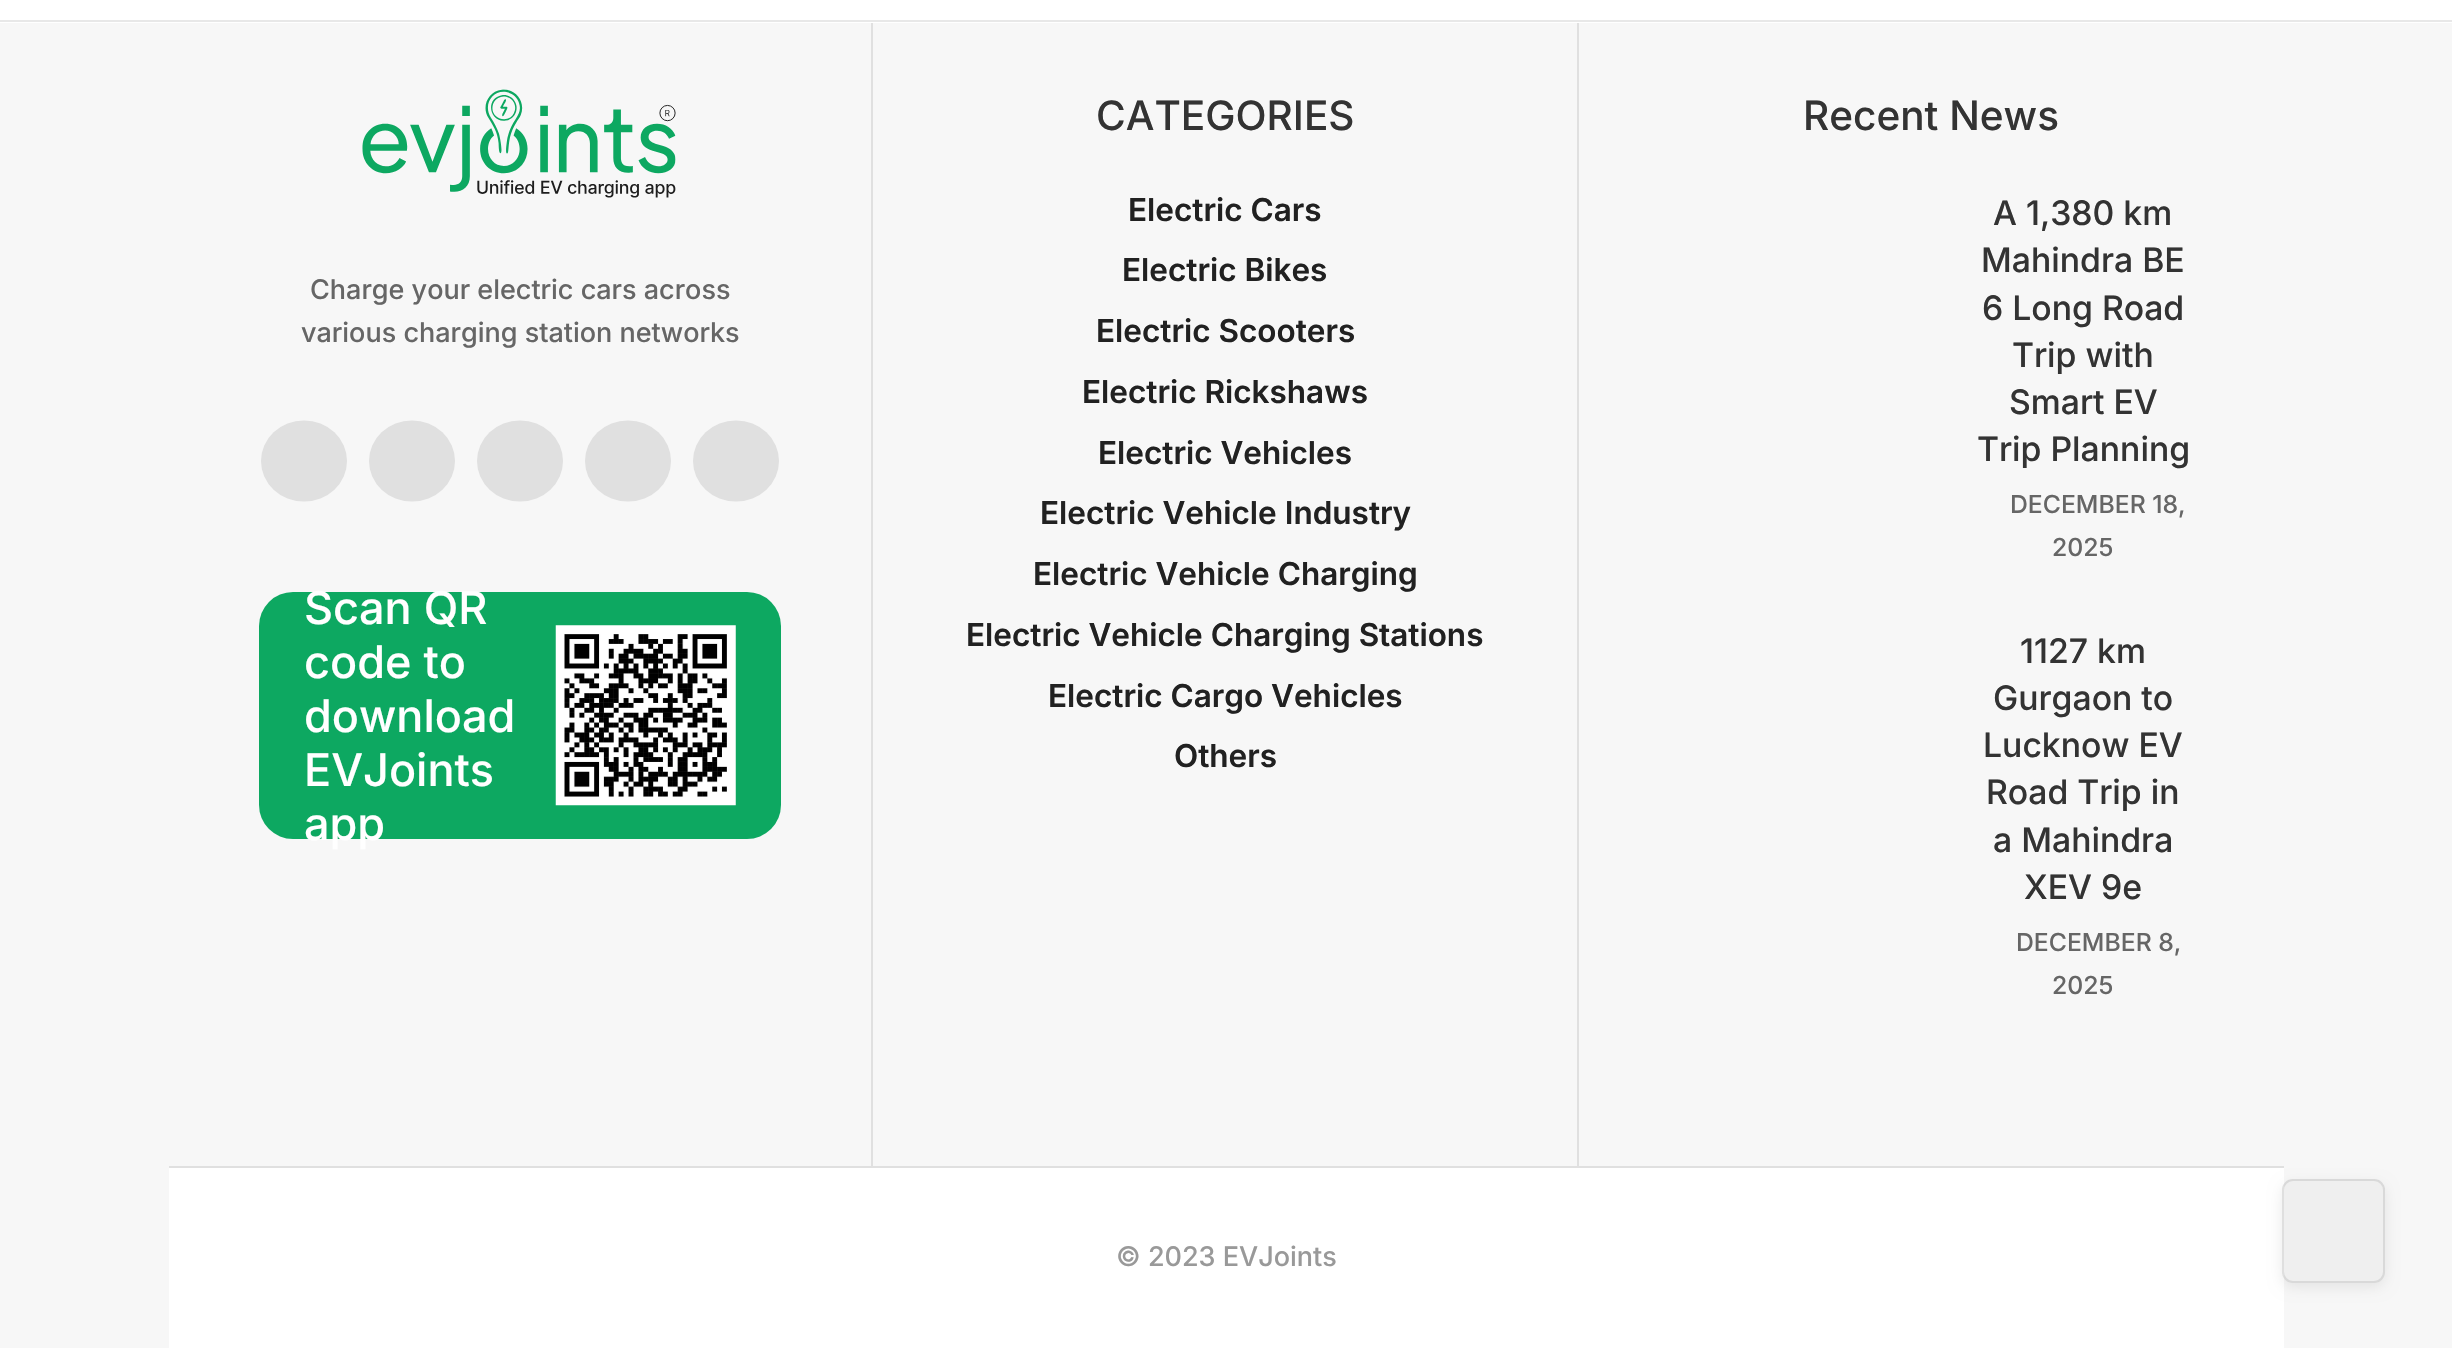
void draw(SkCanvas* canvas) {
  SkPaint paint;
  paint.setAntiAlias(true);
  auto face = [&](const char* family, int weight, float size, bool italic = false) {
    SkFontStyle style(weight, SkFontStyle::kNormal_Width,
      italic ? SkFontStyle::kItalic_Slant : SkFontStyle::kUpright_Slant);
    SkFont result(fontMgr->matchFamilyStyle(family, style), size);
    result.setSubpixel(true);
    return result;
  };
  auto paste = [&](const char* path, float x, float y, float w, float h) {
    auto image = SkImages::DeferredFromEncodedData(SkData::MakeFromFileName(path));
    canvas->drawImageRect(image, SkRect::MakeXYWH(x, y, w, h), SkSamplingOptions());
  };
  auto shape = [&](const char* data, bool evenOdd = false) {
    SkPath result = *SkParsePath::FromSVGString(data);
    if (evenOdd) result.setFillType(SkPathFillType::kEvenOdd);
    return result;
  };
  canvas->clear(0xfff7f7f7);
  {
    const struct { float x, y, w, h; SkColor color; } items[] = {
      {0, 0, 2452, 23, 0xffffffff},
      {0, 20, 2452, 2, 0xffe8e8e8},
      {871, 23, 2, 1143, 0xffe0e0e0},
    };
    for (auto [x, y, w, h, color] : items) {
      paint.setColor(color);
      canvas->drawRect(SkRect::MakeXYWH(x, y, w, h), paint);
    }
  }
  paste("img/1.png", 362, 89, 314, 109);
  canvas->drawOval(SkRect::MakeXYWH(261, 420.5f, 86, 81), paint);
  canvas->drawOval(SkRect::MakeXYWH(369, 420.5f, 86, 81), paint);
  canvas->drawOval(SkRect::MakeXYWH(477, 420.5f, 86, 81), paint);
  canvas->drawOval(SkRect::MakeXYWH(585, 420.5f, 86, 81), paint);
  canvas->drawOval(SkRect::MakeXYWH(693, 420.5f, 86, 81), paint);
  paint.setColor(0xff0da861);
  canvas->drawRoundRect(SkRect::MakeXYWH(259, 592, 522, 247), 34, 34, paint);
  paste("img/2.png", 555, 625, 181, 181);
  {
    const struct { float x, y, w, h; SkColor color; } items[] = {
      {1577, 23, 2, 1143, 0xffe0e0e0},
      {169, 1168, 2115, 180, 0xffffffff},
      {169, 1166, 2115, 2, 0xffe0e0e0},
    };
    for (auto [x, y, w, h, color] : items) {
      paint.setColor(color);
      canvas->drawRect(SkRect::MakeXYWH(x, y, w, h), paint);
    }
  }
  canvas->save();
  canvas->clipPath(shape("M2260 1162H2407V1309H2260ZM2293 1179H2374C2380 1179 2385 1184 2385 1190V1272C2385 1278 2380 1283 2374 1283H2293C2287 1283 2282 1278 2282 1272V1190C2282 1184 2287 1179 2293 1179Z", true), true);
  paint.setColor(0x14000000);
  paint.setMaskFilter(SkMaskFilter::MakeBlur(kNormal_SkBlurStyle, 7));
  canvas->drawRoundRect(SkRect::MakeXYWH(2282, 1184, 103, 103), 11, 11, paint);
  paint.setMaskFilter(nullptr);
  canvas->restore();
  paint.setColor(0x1fb4b4b4);
  canvas->drawRoundRect(SkRect::MakeXYWH(2282, 1179, 103, 104), 11, 11, paint);
  paint.setStroke(true);
  paint.setStrokeWidth(2);
  paint.setColor(0x17000000);
  canvas->drawRoundRect(SkRect::MakeXYWH(2283, 1180, 101, 102), 10, 10, paint);
  auto f0 = face("Inter", 500, 27);
  paint.setStroke(false);
  paint.setColor(0xff666666);
  canvas->drawString("Charge your electric cars across", 310, 299, f0, paint);
  canvas->drawString("various charging station networks", 301, 342, f0, paint);
  auto f1 = face("Inter", 500, 45);
  paint.setColor(0xffffffff);
  {
    const struct { const char* s; float x, y; } items[] = {
      {"Scan QR", 304, 624},
      {"code to", 304, 678},
      {"download", 304, 732},
      {"EVJoints", 304, 786},
      {"app", 304, 840},
    };
    for (auto [s, x, y] : items) {
      canvas->drawString(s, x, y, f1, paint);
    }
  }
  auto f2 = face("Inter", 500, 40.5f);
  paint.setColor(0xff333333);
  canvas->drawString("CATEGORIES", 1096, 130, f2, paint);
  auto f3 = face("Inter", 600, 31.5f);
  paint.setColor(0xff212121);
  {
    const struct { const char* s; float x, y; } items[] = {
      {"Electric Cars", 1128, 221},
      {"Electric Bikes", 1122, 281},
      {"Electric Scooters", 1096, 342},
      {"Electric Rickshaws", 1082, 403},
      {"Electric Vehicles", 1098, 464},
      {"Electric Vehicle Industry", 1040, 524},
      {"Electric Vehicle Charging", 1033, 585},
      {"Electric Vehicle Charging Stations", 966, 646},
      {"Electric Cargo Vehicles", 1048, 707},
      {"Others", 1174, 767},
    };
    for (auto [s, x, y] : items) {
      canvas->drawString(s, x, y, f3, paint);
    }
  }
  paint.setColor(0xff333333);
  canvas->drawString("Recent News", 1803, 130, f2, paint);
  auto f4 = face("Inter", 500, 33.75f);
  {
    const struct { const char* s; float x, y; } items[] = {
      {"A 1,380 km", 1993, 225},
      {"Mahindra BE", 1981, 272},
      {"6 Long Road", 1982, 320},
      {"Trip with", 2012, 367},
      {"Smart EV", 2009, 414},
      {"Trip Planning", 1977, 461},
    };
    for (auto [s, x, y] : items) {
      canvas->drawString(s, x, y, f4, paint);
    }
  }
  auto f5 = face("Inter", 500, 24.75f);
  paint.setColor(0xff666666);
  canvas->drawString("DECEMBER 18,", 2010, 513, f5, paint);
  canvas->drawString("2025", 2052, 556, f5, paint);
  paint.setColor(0xff333333);
  {
    const struct { const char* s; float x, y; } items[] = {
      {"1127 km", 2020, 663},
      {"Gurgaon to", 1993, 710},
      {"Lucknow EV", 1983, 757},
      {"Road Trip in", 1986, 804},
      {"a Mahindra", 1993, 852},
      {"XEV 9e", 2024, 899},
    };
    for (auto [s, x, y] : items) {
      canvas->drawString(s, x, y, f4, paint);
    }
  }
  paint.setColor(0xff666666);
  canvas->drawString("DECEMBER 8,", 2016, 951, f5, paint);
  canvas->drawString("2025", 2052, 994, f5, paint);
  paint.setColor(0xff999999);
  canvas->drawString("© 2023 EVJoints", 1116, 1266, f0, paint);
}
